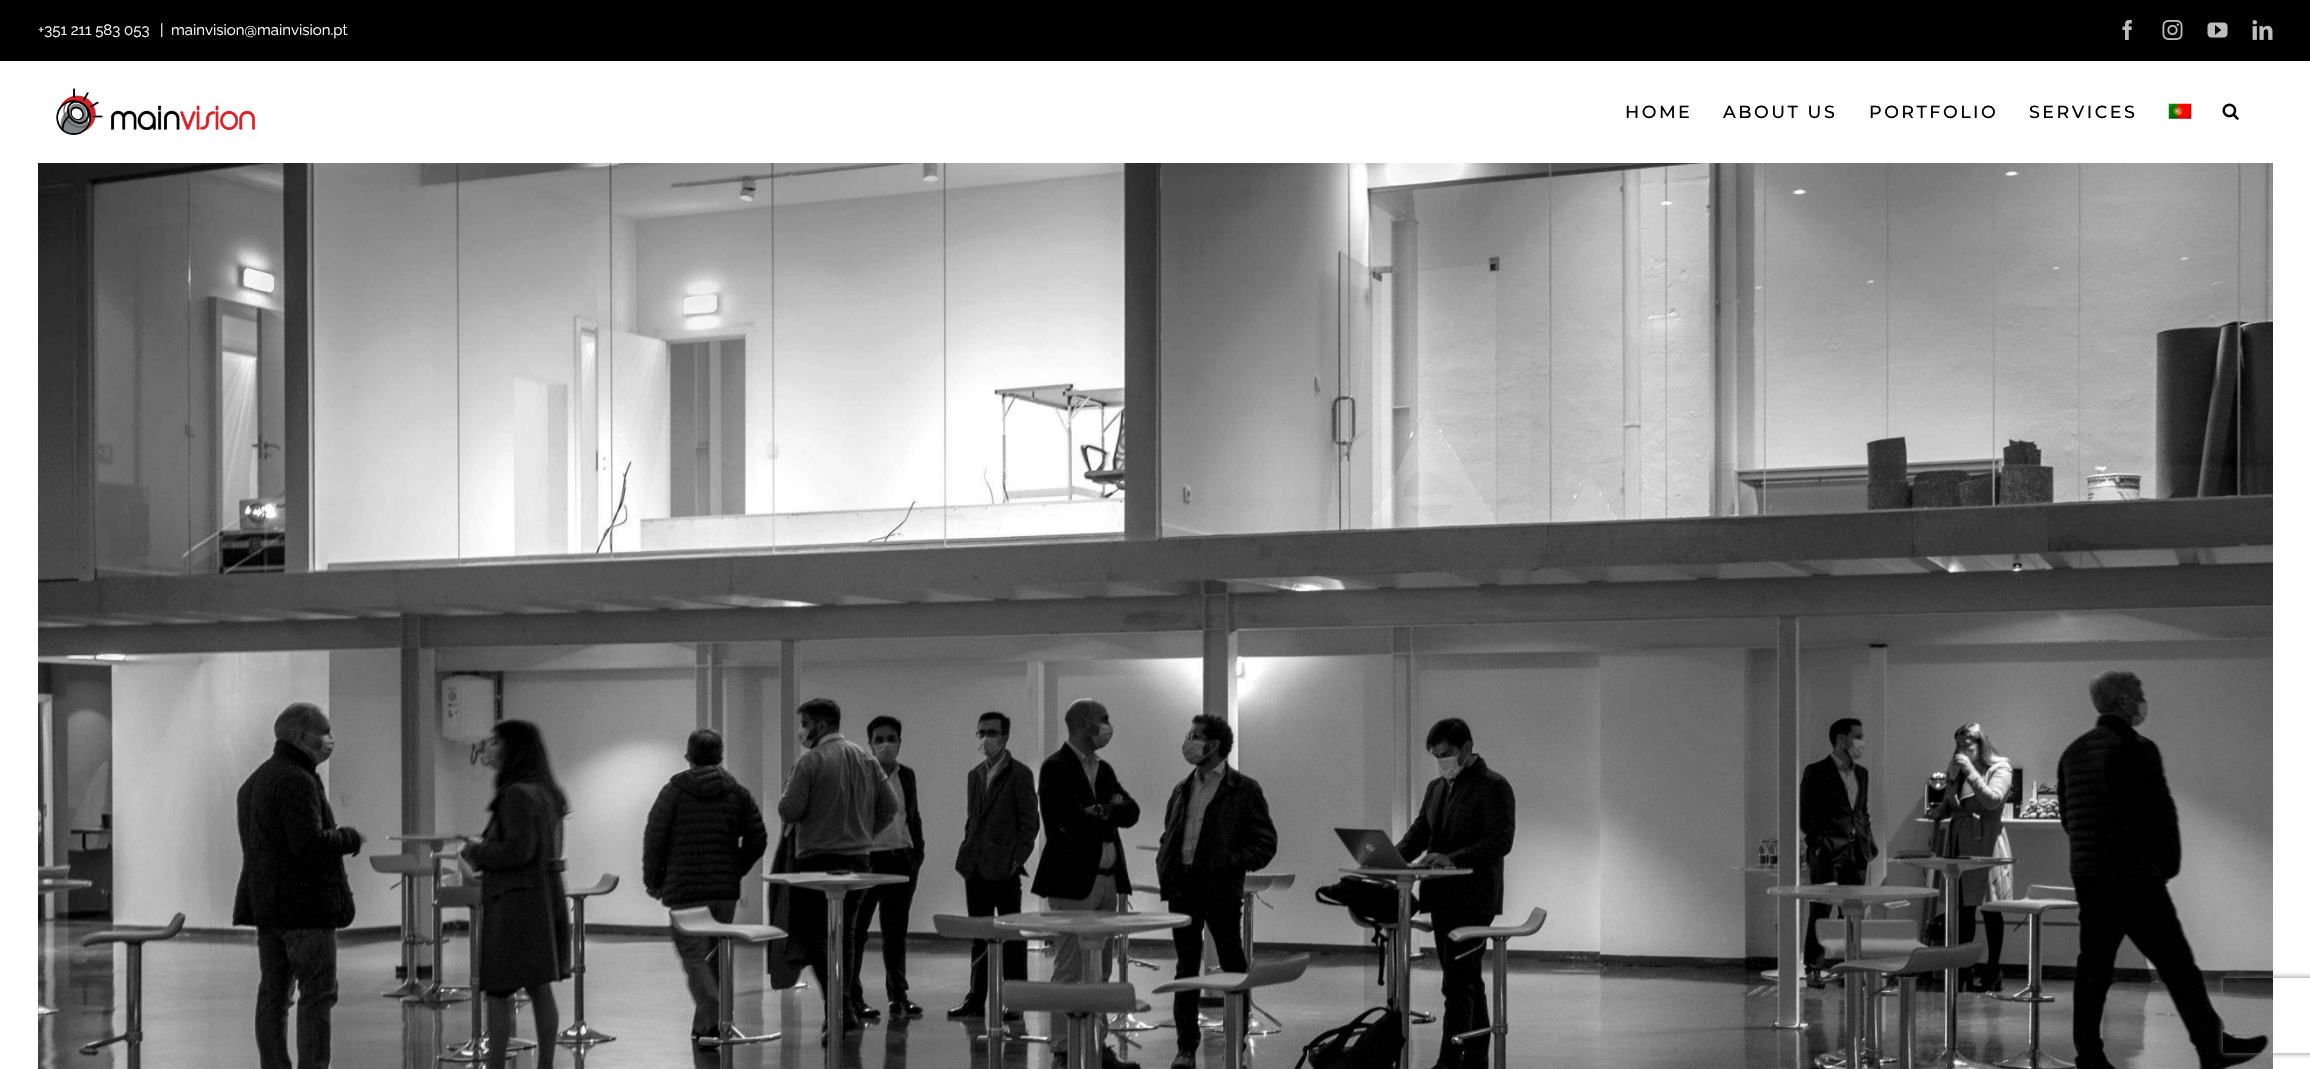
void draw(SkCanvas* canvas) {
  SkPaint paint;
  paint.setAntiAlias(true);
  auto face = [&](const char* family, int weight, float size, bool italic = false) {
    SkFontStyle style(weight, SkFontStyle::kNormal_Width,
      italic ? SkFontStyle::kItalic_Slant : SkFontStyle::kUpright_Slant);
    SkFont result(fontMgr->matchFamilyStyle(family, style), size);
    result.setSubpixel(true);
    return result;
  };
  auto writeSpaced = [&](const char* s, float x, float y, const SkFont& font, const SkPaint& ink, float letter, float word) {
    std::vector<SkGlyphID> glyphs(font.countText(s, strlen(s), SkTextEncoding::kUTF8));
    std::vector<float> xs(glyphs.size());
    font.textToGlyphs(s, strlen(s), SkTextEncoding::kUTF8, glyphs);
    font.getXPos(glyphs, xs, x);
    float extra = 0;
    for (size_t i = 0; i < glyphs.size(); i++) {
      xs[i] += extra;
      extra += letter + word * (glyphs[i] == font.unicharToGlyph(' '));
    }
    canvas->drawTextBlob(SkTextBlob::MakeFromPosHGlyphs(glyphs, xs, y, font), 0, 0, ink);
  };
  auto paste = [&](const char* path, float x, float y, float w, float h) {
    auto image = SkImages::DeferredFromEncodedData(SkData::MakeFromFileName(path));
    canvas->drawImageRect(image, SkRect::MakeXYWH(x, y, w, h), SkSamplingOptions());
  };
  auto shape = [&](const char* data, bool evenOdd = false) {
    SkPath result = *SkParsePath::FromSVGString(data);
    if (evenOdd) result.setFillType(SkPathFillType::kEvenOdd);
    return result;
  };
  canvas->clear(0xffffffff);
  paint.setColor(0xff000000);
  canvas->drawRect(SkRect::MakeXYWH(0, 0, 2310, 61), paint);
  paste("img/1.png", 2122, 20, 10, 20);
  paste("img/2.png", 2162, 20, 21, 20);
  paste("img/3.png", 2207, 22, 21, 16);
  paste("img/4.png", 2252, 20, 21, 20);
  paste("img/5.png", 56, 88, 199, 47);
  paste("img/6.png", 2168, 103, 24, 16);
  paste("img/7.png", 2222, 103, 17, 17);
  paste("img/8.png", 38, 163, 2235, 906);
  canvas->save();
  canvas->clipPath(shape("M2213 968H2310V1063H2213ZM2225.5 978H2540.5C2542 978 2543 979 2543 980.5V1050.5C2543 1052 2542 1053 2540.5 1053H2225.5C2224 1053 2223 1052 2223 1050.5V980.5C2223 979 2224 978 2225.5 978Z", true), true);
  paint.setColor(0xff808080);
  paint.setMaskFilter(SkMaskFilter::MakeBlur(kNormal_SkBlurStyle, 3));
  canvas->drawRoundRect(SkRect::MakeXYWH(2223, 978, 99, 75), 2.5f, 2.5f, paint);
  paint.setMaskFilter(nullptr);
  canvas->restore();
  auto f0 = face("Raleway", 400, 15);
  paint.setColor(0xffffffff);
  {
    const struct { const char* s; float x, y; } items[] = {
      {"+351 211 583 053", 38, 35},
      {"|", 160, 35},
      {"mainvision@mainvision.pt", 171, 35},
    };
    for (auto [s, x, y] : items) {
      canvas->drawString(s, x, y, f0, paint);
    }
  }
  auto f1 = face("Montserrat", 100, 17.5f);
  paint.setColor(0xff000000);
  {
    const struct { const char* s; float x, y; } items[] = {
      {"HOME", 1625, 118},
      {"ABOUT US", 1723, 118},
      {"PORTFOLIO", 1869, 118},
      {"SERVICES", 2029, 118},
    };
    for (auto [s, x, y] : items) {
      writeSpaced(s, x, y, f1, paint, 2.5f, 0);
    }
  }
}
